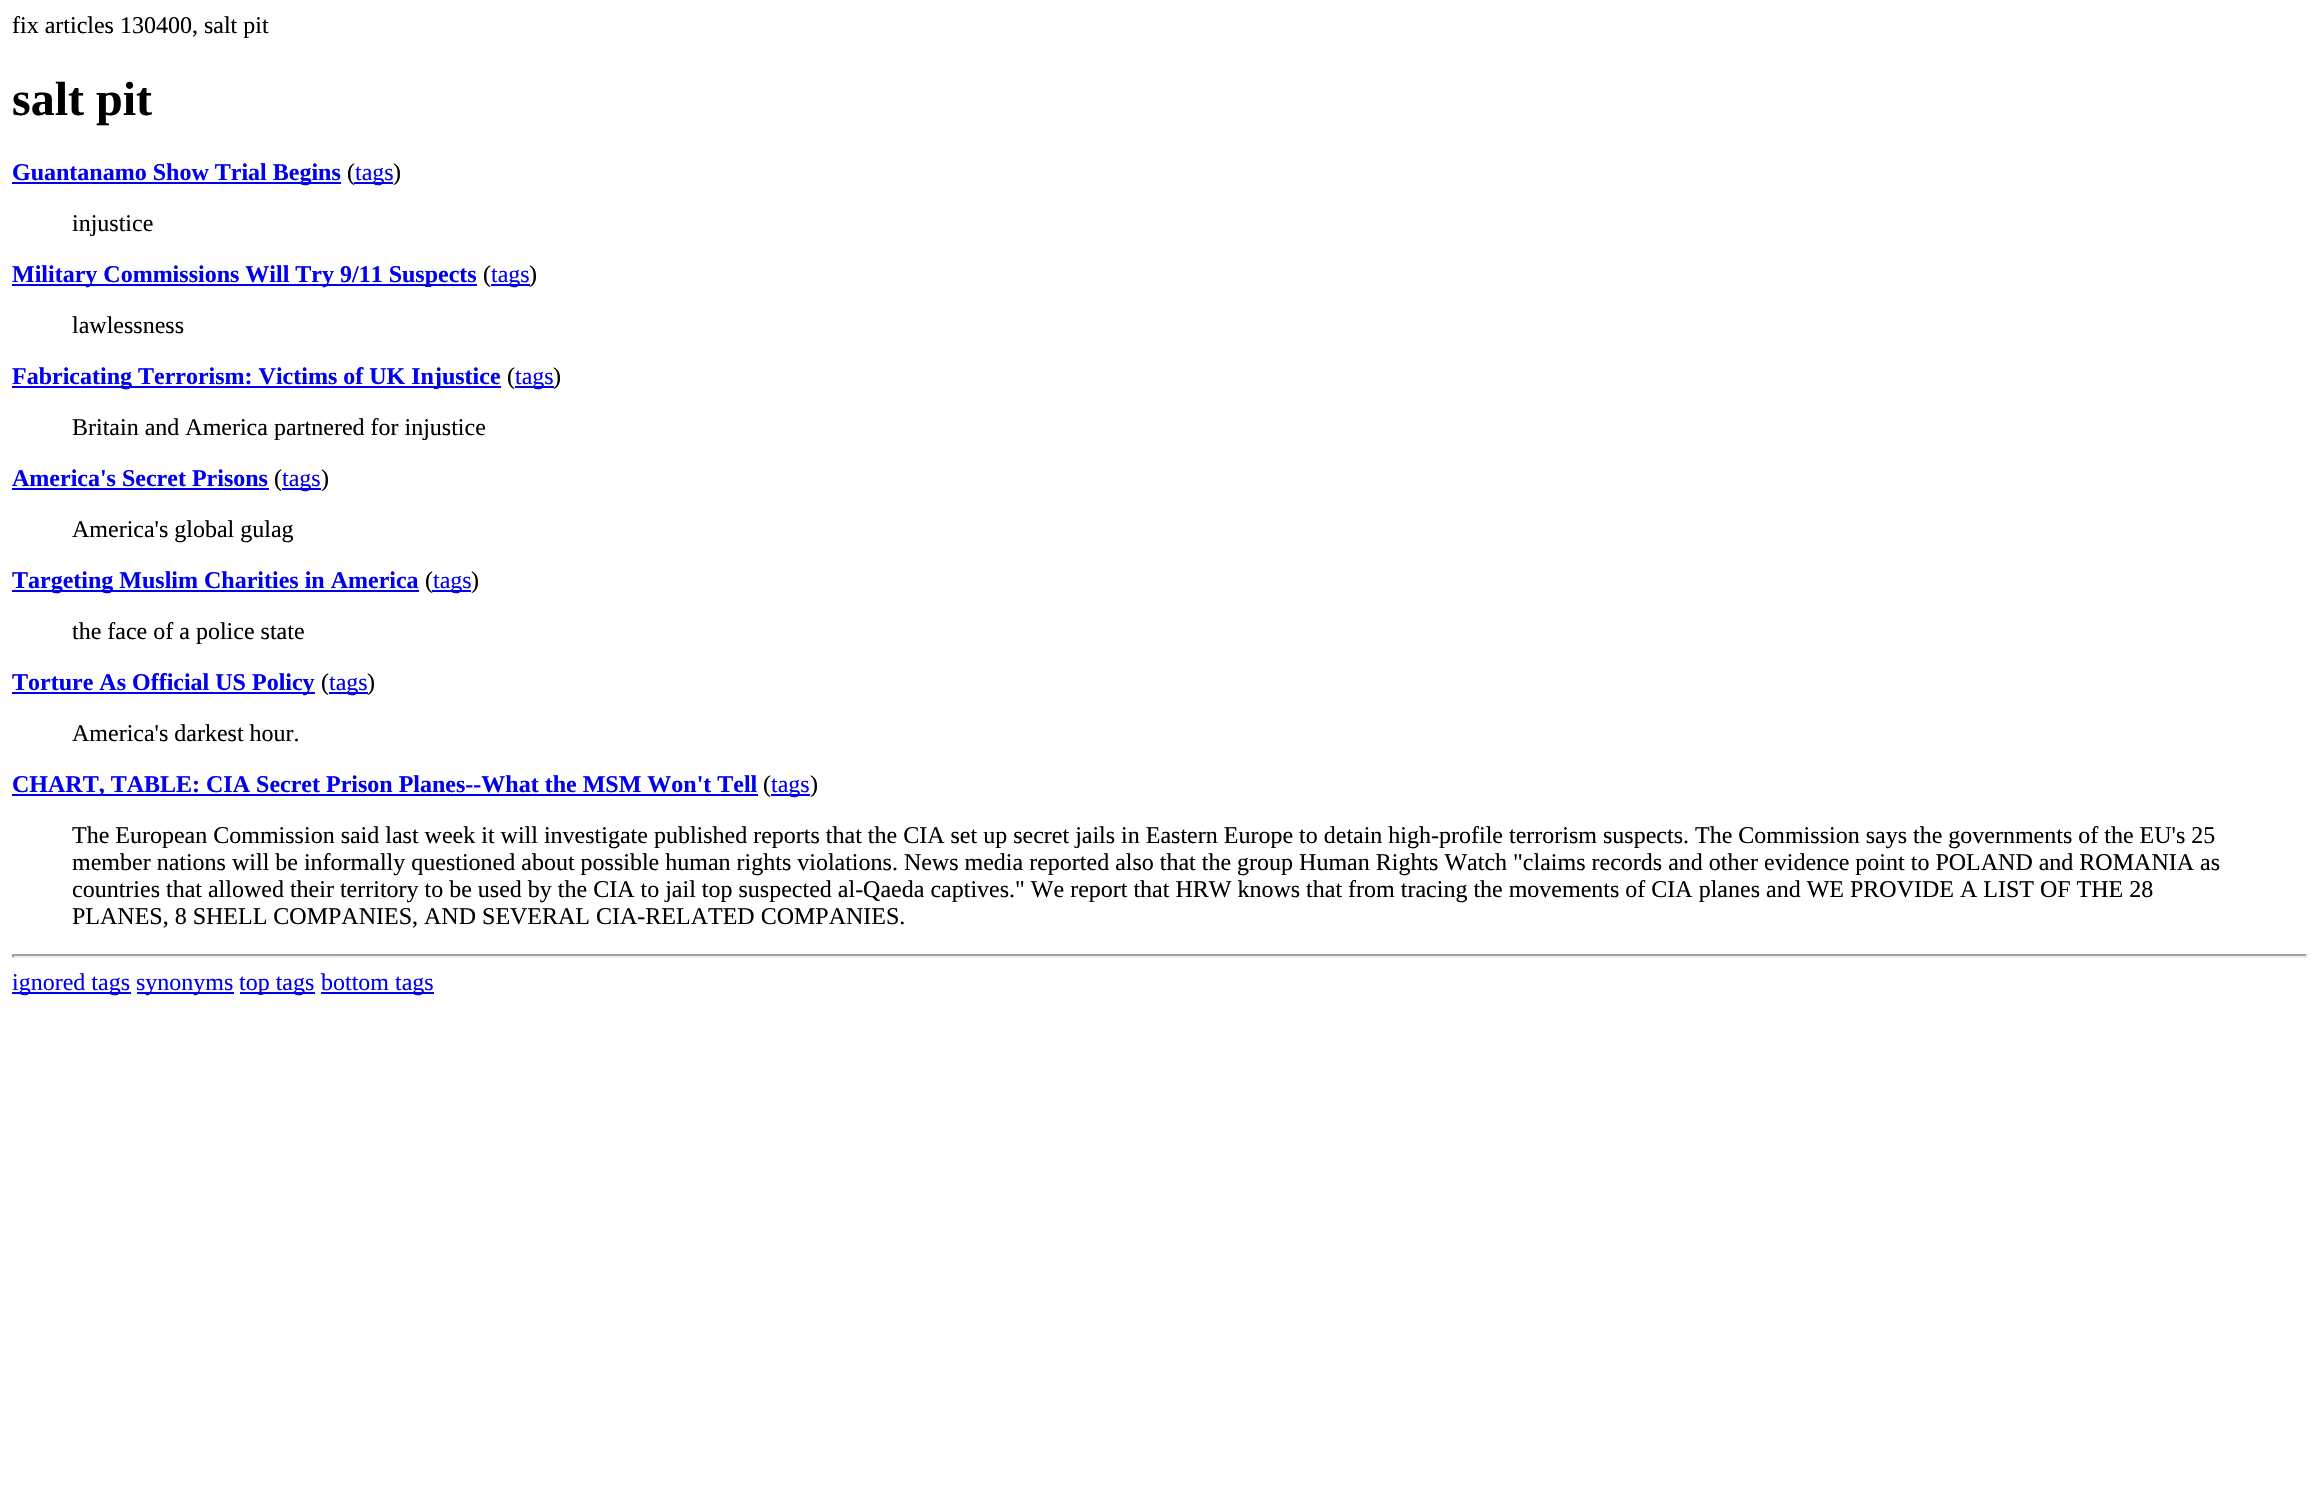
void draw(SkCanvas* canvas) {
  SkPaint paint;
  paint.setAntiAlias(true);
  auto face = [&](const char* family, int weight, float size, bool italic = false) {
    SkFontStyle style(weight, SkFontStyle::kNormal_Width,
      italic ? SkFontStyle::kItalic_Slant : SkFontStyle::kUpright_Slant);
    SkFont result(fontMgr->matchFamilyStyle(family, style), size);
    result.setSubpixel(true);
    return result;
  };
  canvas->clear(0xffffffff);
  {
    const struct { float x, y, w, h; SkColor color; } items[] = {
      {12, 182, 329, 2, 0xff0000ee},
      {354, 182, 39, 2, 0xff0000ee},
      {12, 284, 465, 2, 0xff0000ee},
      {491, 284, 39, 2, 0xff0000ee},
      {12, 386, 489, 2, 0xff0000ee},
      {515, 386, 39, 2, 0xff0000ee},
      {12, 488, 257, 2, 0xff0000ee},
      {282, 488, 39, 2, 0xff0000ee},
      {12, 590, 407, 2, 0xff0000ee},
      {432, 590, 39, 2, 0xff0000ee},
      {12, 692, 303, 2, 0xff0000ee},
      {329, 692, 39, 2, 0xff0000ee},
      {12, 794, 746, 2, 0xff0000ee},
      {771, 794, 39, 2, 0xff0000ee},
      {12, 954, 2295, 2, 0xff9f9f9f},
      {2306, 954, 2, 3, 0xffeeeeee},
      {12, 956, 2295, 2, 0xffeeeeee},
      {12, 954, 2, 3, 0xff9f9f9f},
      {12, 992, 119, 2, 0xff0000ee},
      {137, 992, 97, 2, 0xff0000ee},
      {240, 992, 75, 2, 0xff0000ee},
      {321, 992, 113, 2, 0xff0000ee},
    };
    for (auto [x, y, w, h, color] : items) {
      paint.setColor(color);
      canvas->drawRect(SkRect::MakeXYWH(x, y, w, h), paint);
    }
  }
  auto f0 = face("Liberation Serif", 400, 24);
  paint.setColor(0xff000000);
  canvas->drawString("fix articles 130400, salt pit", 12, 33, f0, paint);
  auto f1 = face("Liberation Serif", 700, 48);
  canvas->drawString("salt pit", 12, 115, f1, paint);
  auto f2 = face("Liberation Serif", 700, 24);
  paint.setColor(0xff0000ee);
  canvas->drawString("Guantanamo Show Trial Begins", 12, 180, f2, paint);
  paint.setColor(0xff000000);
  canvas->drawString("(", 347, 180, f0, paint);
  paint.setColor(0xff0000ee);
  canvas->drawString("tags", 355, 180, f0, paint);
  paint.setColor(0xff000000);
  canvas->drawString(")", 393, 180, f0, paint);
  canvas->drawString("injustice", 72, 231, f0, paint);
  paint.setColor(0xff0000ee);
  canvas->drawString("Military Commissions Will Try 9/11 Suspects", 12, 282, f2, paint);
  paint.setColor(0xff000000);
  canvas->drawString("(", 483, 282, f0, paint);
  paint.setColor(0xff0000ee);
  canvas->drawString("tags", 491, 282, f0, paint);
  paint.setColor(0xff000000);
  canvas->drawString(")", 529, 282, f0, paint);
  canvas->drawString("lawlessness", 72, 333, f0, paint);
  paint.setColor(0xff0000ee);
  canvas->drawString("Fabricating Terrorism: Victims of UK Injustice", 12, 384, f2, paint);
  paint.setColor(0xff000000);
  canvas->drawString("(", 507, 384, f0, paint);
  paint.setColor(0xff0000ee);
  canvas->drawString("tags", 515, 384, f0, paint);
  paint.setColor(0xff000000);
  canvas->drawString(")", 553, 384, f0, paint);
  canvas->drawString("Britain and America partnered for injustice", 72, 435, f0, paint);
  paint.setColor(0xff0000ee);
  canvas->drawString("America's Secret Prisons", 12, 486, f2, paint);
  paint.setColor(0xff000000);
  canvas->drawString("(", 274, 486, f0, paint);
  paint.setColor(0xff0000ee);
  canvas->drawString("tags", 282, 486, f0, paint);
  paint.setColor(0xff000000);
  canvas->drawString(")", 321, 486, f0, paint);
  canvas->drawString("America's global gulag", 72, 537, f0, paint);
  paint.setColor(0xff0000ee);
  canvas->drawString("Targeting Muslim Charities in America", 12, 588, f2, paint);
  paint.setColor(0xff000000);
  canvas->drawString("(", 425, 588, f0, paint);
  paint.setColor(0xff0000ee);
  canvas->drawString("tags", 433, 588, f0, paint);
  paint.setColor(0xff000000);
  canvas->drawString(")", 471, 588, f0, paint);
  canvas->drawString("the face of a police state", 72, 639, f0, paint);
  paint.setColor(0xff0000ee);
  canvas->drawString("Torture As Official US Policy", 12, 690, f2, paint);
  paint.setColor(0xff000000);
  canvas->drawString("(", 321, 690, f0, paint);
  paint.setColor(0xff0000ee);
  canvas->drawString("tags", 329, 690, f0, paint);
  paint.setColor(0xff000000);
  canvas->drawString(")", 367, 690, f0, paint);
  canvas->drawString("America's darkest hour.", 72, 741, f0, paint);
  paint.setColor(0xff0000ee);
  canvas->drawString("CHART, TABLE: CIA Secret Prison Planes--What the MSM Won't Tell", 12, 792, f2, paint);
  paint.setColor(0xff000000);
  canvas->drawString("(", 763, 792, f0, paint);
  paint.setColor(0xff0000ee);
  canvas->drawString("tags", 771, 792, f0, paint);
  paint.setColor(0xff000000);
  {
    const struct { const char* s; float x, y; } items[] = {
      {")", 810, 792},
      {"The European Commission said last week it will investigate published reports that the CIA set up secret jails in Eastern Europe to detain high-profile terrorism suspects. The Commission says the governments of the EU's 25", 72, 843},
      {"member nations will be informally questioned about possible human rights violations. News media reported also that the group Human Rights Watch \"claims records and other evidence point to POLAND and ROMANIA as", 72, 870},
      {"countries that allowed their territory to be used by the CIA to jail top suspected al-Qaeda captives.\" We report that HRW knows that from tracing the movements of CIA planes and WE PROVIDE A LIST OF THE 28", 72, 897},
      {"PLANES, 8 SHELL COMPANIES, AND SEVERAL CIA-RELATED COMPANIES.", 72, 924},
    };
    for (auto [s, x, y] : items) {
      canvas->drawString(s, x, y, f0, paint);
    }
  }
  paint.setColor(0xff0000ee);
  {
    const struct { const char* s; float x, y; } items[] = {
      {"ignored tags", 12, 990},
      {"synonyms", 136, 990},
      {"top tags", 239, 990},
      {"bottom tags", 321, 990},
    };
    for (auto [s, x, y] : items) {
      canvas->drawString(s, x, y, f0, paint);
    }
  }
}
